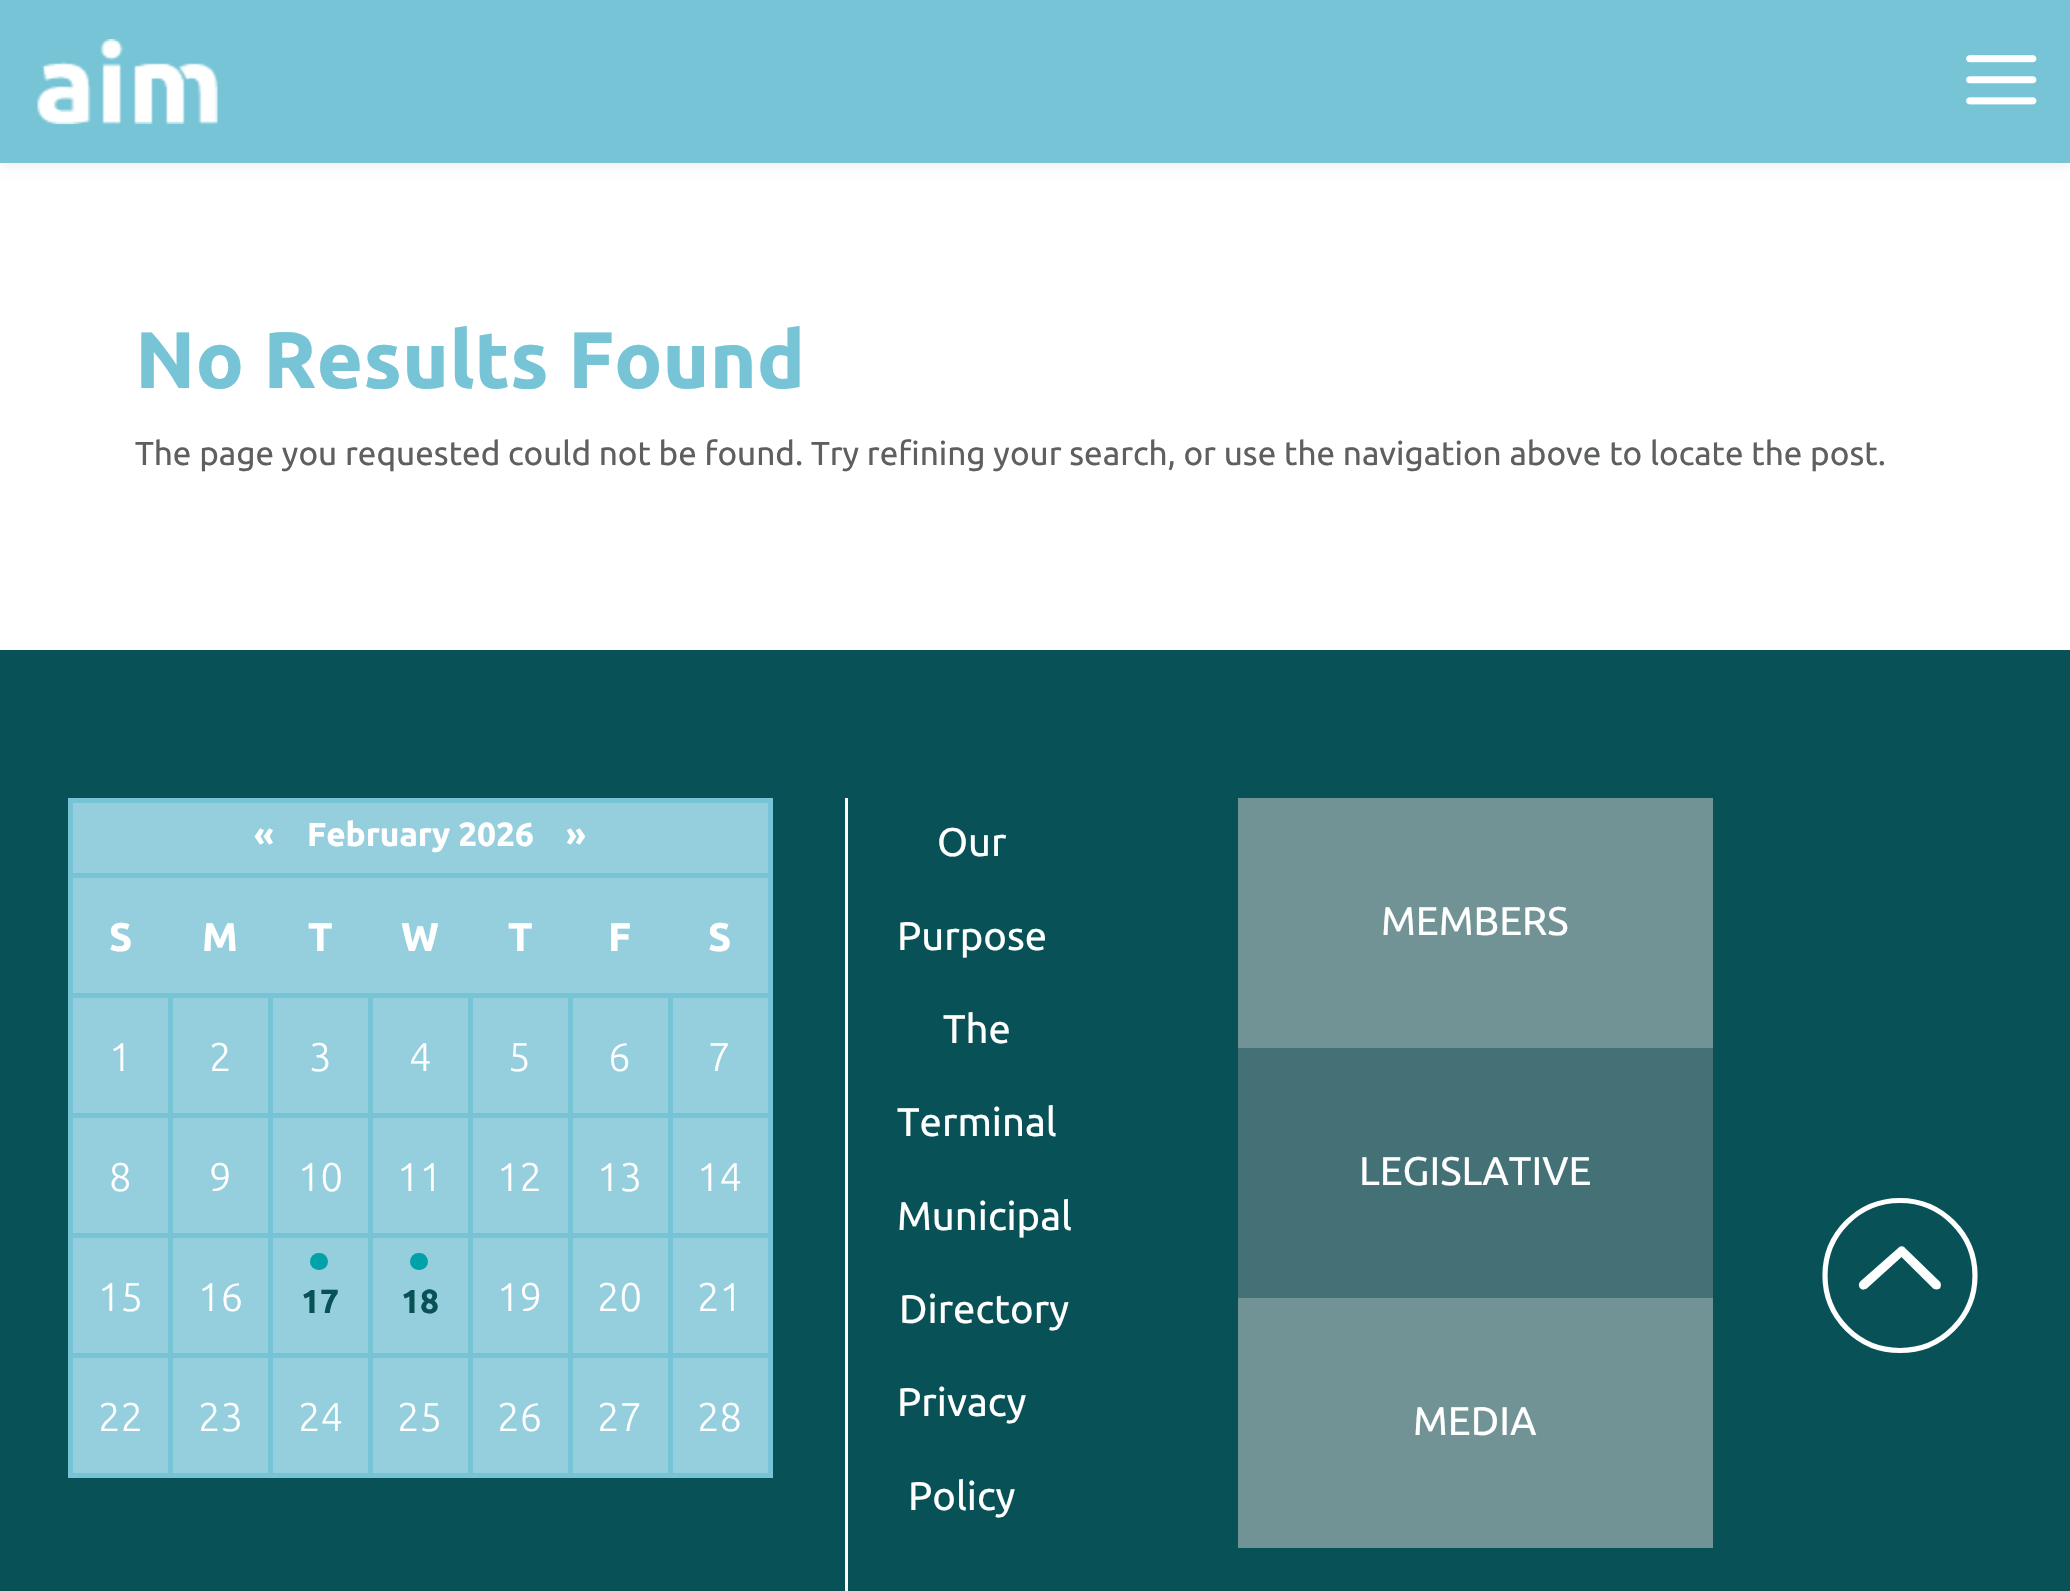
void draw(SkCanvas* canvas) {
  SkPaint paint;
  paint.setAntiAlias(true);
  auto face = [&](const char* family, int weight, float size, bool italic = false) {
    SkFontStyle style(weight, SkFontStyle::kNormal_Width,
      italic ? SkFontStyle::kItalic_Slant : SkFontStyle::kUpright_Slant);
    SkFont result(fontMgr->matchFamilyStyle(family, style), size);
    result.setSubpixel(true);
    return result;
  };
  auto paste = [&](const char* path, float x, float y, float w, float h) {
    auto image = SkImages::DeferredFromEncodedData(SkData::MakeFromFileName(path));
    canvas->drawImageRect(image, SkRect::MakeXYWH(x, y, w, h), SkSamplingOptions());
  };
  auto shape = [&](const char* data, bool evenOdd = false) {
    SkPath result = *SkParsePath::FromSVGString(data);
    if (evenOdd) result.setFillType(SkPathFillType::kEvenOdd);
    return result;
  };
  canvas->clear(0xffffffff);
  paint.setColor(0x1a000000);
  paint.setMaskFilter(SkMaskFilter::MakeBlur(kNormal_SkBlurStyle, 6));
  canvas->drawRect(SkRect::MakeXYWH(0, 0, 2070, 163), paint);
  paint.setMaskFilter(nullptr);
  paint.setColor(0xff76c4d5);
  canvas->drawRect(SkRect::MakeXYWH(0, 0, 2070, 163), paint);
  paste("img/1.png", 37, 39, 181, 86);
  paste("img/2.png", 1966, 55, 71, 50);
  {
    const struct { float x, y, w, h; SkColor color; } items[] = {
      {0, 650, 2070, 941, 0xff085156},
      {73, 803, 695, 70, 0xff95cfdd},
      {68, 798, 705, 5, 0xff76c4d5},
      {668, 993, 105, 5, 0xff76c4d5},
      {668, 1113, 105, 5, 0xff76c4d5},
      {668, 1233, 105, 5, 0xff76c4d5},
      {668, 1353, 105, 5, 0xff76c4d5},
      {768, 1353, 5, 125, 0xff76c4d5},
      {768, 1233, 5, 125, 0xff76c4d5},
      {768, 1113, 5, 125, 0xff76c4d5},
      {768, 873, 5, 245, 0xff76c4d5},
      {768, 798, 5, 80, 0xff76c4d5},
      {668, 1473, 105, 5, 0xff76c4d5},
      {668, 1353, 5, 125, 0xff76c4d5},
      {568, 1353, 105, 5, 0xff76c4d5},
      {668, 1233, 5, 125, 0xff76c4d5},
      {568, 1233, 105, 5, 0xff76c4d5},
      {668, 1113, 5, 125, 0xff76c4d5},
      {568, 1113, 105, 5, 0xff76c4d5},
      {668, 993, 5, 125, 0xff76c4d5},
      {568, 993, 105, 5, 0xff76c4d5},
      {568, 1473, 105, 5, 0xff76c4d5},
      {568, 1353, 5, 125, 0xff76c4d5},
      {468, 1353, 105, 5, 0xff76c4d5},
      {568, 1233, 5, 125, 0xff76c4d5},
      {468, 1233, 105, 5, 0xff76c4d5},
      {568, 1113, 5, 125, 0xff76c4d5},
      {468, 1113, 105, 5, 0xff76c4d5},
      {568, 993, 5, 125, 0xff76c4d5},
      {468, 993, 105, 5, 0xff76c4d5},
      {468, 1473, 105, 5, 0xff76c4d5},
      {468, 1353, 5, 125, 0xff76c4d5},
      {368, 1353, 105, 5, 0xff76c4d5},
      {468, 1233, 5, 125, 0xff76c4d5},
      {368, 1233, 105, 5, 0xff76c4d5},
      {468, 1113, 5, 125, 0xff76c4d5},
      {368, 1113, 105, 5, 0xff76c4d5},
      {468, 993, 5, 125, 0xff76c4d5},
      {368, 993, 105, 5, 0xff76c4d5},
      {368, 1473, 105, 5, 0xff76c4d5},
      {368, 1353, 5, 125, 0xff76c4d5},
      {268, 1353, 105, 5, 0xff76c4d5},
      {368, 1233, 5, 125, 0xff76c4d5},
      {268, 1233, 105, 5, 0xff76c4d5},
      {368, 1113, 5, 125, 0xff76c4d5},
      {268, 1113, 105, 5, 0xff76c4d5},
      {368, 993, 5, 125, 0xff76c4d5},
      {268, 993, 105, 5, 0xff76c4d5},
      {268, 1473, 105, 5, 0xff76c4d5},
      {268, 1353, 5, 125, 0xff76c4d5},
      {168, 1353, 105, 5, 0xff76c4d5},
      {268, 1233, 5, 125, 0xff76c4d5},
      {168, 1233, 105, 5, 0xff76c4d5},
      {268, 1113, 5, 125, 0xff76c4d5},
      {168, 1113, 105, 5, 0xff76c4d5},
      {268, 993, 5, 125, 0xff76c4d5},
      {168, 993, 105, 5, 0xff76c4d5},
      {168, 1473, 105, 5, 0xff76c4d5},
      {168, 1353, 5, 125, 0xff76c4d5},
      {68, 1353, 105, 5, 0xff76c4d5},
      {168, 1233, 5, 125, 0xff76c4d5},
      {68, 1233, 105, 5, 0xff76c4d5},
      {168, 1113, 5, 125, 0xff76c4d5},
      {68, 1113, 105, 5, 0xff76c4d5},
      {168, 993, 5, 125, 0xff76c4d5},
      {68, 993, 105, 5, 0xff76c4d5},
      {68, 1473, 105, 5, 0xff76c4d5},
      {68, 1353, 5, 125, 0xff76c4d5},
      {68, 1233, 5, 125, 0xff76c4d5},
      {68, 1113, 5, 125, 0xff76c4d5},
      {68, 873, 5, 245, 0xff76c4d5},
      {68, 873, 705, 5, 0xff76c4d5},
      {68, 798, 5, 80, 0xff76c4d5},
      {73, 878, 695, 115, 0xff95cfdd},
      {73, 998, 95, 115, 0xff95cfdd},
      {173, 998, 95, 115, 0xff95cfdd},
      {273, 998, 95, 115, 0xff95cfdd},
      {373, 998, 95, 115, 0xff95cfdd},
      {473, 998, 95, 115, 0xff95cfdd},
      {573, 998, 95, 115, 0xff95cfdd},
      {673, 998, 95, 115, 0xff95cfdd},
      {73, 1118, 95, 115, 0xff95cfdd},
      {173, 1118, 95, 115, 0xff95cfdd},
      {273, 1118, 95, 115, 0xff95cfdd},
      {373, 1118, 95, 115, 0xff95cfdd},
      {473, 1118, 95, 115, 0xff95cfdd},
      {573, 1118, 95, 115, 0xff95cfdd},
      {673, 1118, 95, 115, 0xff95cfdd},
      {73, 1238, 95, 115, 0xff95cfdd},
      {173, 1238, 95, 115, 0xff95cfdd},
      {273, 1238, 95, 115, 0xff95cfdd},
    };
    for (auto [x, y, w, h, color] : items) {
      paint.setColor(color);
      canvas->drawRect(SkRect::MakeXYWH(x, y, w, h), paint);
    }
  }
  paint.setColor(0xff00a2aa);
  canvas->drawRoundRect(SkRect::MakeXYWH(310, 1253, 18, 17), 8.5f, 8.5f, paint);
  paint.setColor(0xff95cfdd);
  canvas->drawRect(SkRect::MakeXYWH(373, 1238, 95, 115), paint);
  paint.setColor(0xff00a2aa);
  canvas->drawRoundRect(SkRect::MakeXYWH(410, 1253, 18, 17), 8.5f, 8.5f, paint);
  {
    const struct { float x, y, w, h; SkColor color; } items[] = {
      {473, 1238, 95, 115, 0xff95cfdd},
      {573, 1238, 95, 115, 0xff95cfdd},
      {673, 1238, 95, 115, 0xff95cfdd},
      {73, 1358, 95, 115, 0xff95cfdd},
      {173, 1358, 95, 115, 0xff95cfdd},
      {273, 1358, 95, 115, 0xff95cfdd},
      {373, 1358, 95, 115, 0xff95cfdd},
      {473, 1358, 95, 115, 0xff95cfdd},
      {573, 1358, 95, 115, 0xff95cfdd},
      {673, 1358, 95, 115, 0xff95cfdd},
      {845, 798, 3, 793, 0xffffffff},
      {1238, 798, 475, 250, 0xff719395},
      {1238, 1048, 475, 250, 0xff437175},
      {1238, 1298, 475, 250, 0xff719395},
    };
    for (auto [x, y, w, h, color] : items) {
      paint.setColor(color);
      canvas->drawRect(SkRect::MakeXYWH(x, y, w, h), paint);
    }
  }
  paint.setStroke(true);
  paint.setStrokeWidth(5.2f);
  paint.setColor(0xffffffff);
  canvas->drawPath(shape("M1900 1200.5C1858.5 1200.5 1825 1234 1825 1275.5C1825 1317 1858.5 1350.5 1900 1350.5C1941.5 1350.5 1975 1317 1975 1275.5C1975 1234.5 1941.5 1200.5 1900 1200.5ZM1938 1286.5C1937 1287 1936 1287 1935 1286.5L1901.5 1253.5L1865 1286.5C1864 1287 1862.5 1287 1862 1286.5C1861.5 1285.5 1861.5 1284 1862 1283.5L1900.5 1249.5C1901 1248.5 1902.5 1248.5 1903 1249.5L1938 1283.5C1938.5 1284.5 1938.5 1285.5 1938 1286.5Z"), paint);
  auto f0 = face("Ubuntu", 700, 80);
  paint.setStroke(false);
  paint.setColor(0xff76c4d5);
  canvas->drawString("No Results Found", 135, 388, f0, paint);
  auto f1 = face("Ubuntu", 400, 33.33f);
  paint.setColor(0xff5e5f5f);
  canvas->drawString("The page you requested could not be found. Try refining your search, or use the navigation above to locate the post.", 135, 465, f1, paint);
  auto f2 = face("Ubuntu", 700, 33.33f);
  paint.setColor(0xffffffff);
  {
    const struct { const char* s; float x, y; } items[] = {
      {"«", 254, 846},
      {"February 2026", 307, 846},
      {"»", 566, 846},
    };
    for (auto [s, x, y] : items) {
      canvas->drawString(s, x, y, f2, paint);
    }
  }
  auto f3 = face("Ubuntu", 700, 40);
  {
    const struct { const char* s; float x, y; } items[] = {
      {"S", 109, 951},
      {"M", 202, 951},
      {"T", 308, 951},
      {"W", 401, 951},
      {"T", 508, 951},
      {"F", 608, 951},
      {"S", 708, 951},
    };
    for (auto [s, x, y] : items) {
      canvas->drawString(s, x, y, f3, paint);
    }
  }
  auto f4 = face("Ubuntu", 300, 40);
  {
    const struct { const char* s; float x, y; } items[] = {
      {"1", 109, 1071},
      {"2", 209, 1071},
      {"3", 309, 1071},
      {"4", 409, 1071},
      {"5", 508, 1071},
      {"6", 608, 1071},
      {"7", 708, 1071},
      {"8", 109, 1191},
      {"9", 209, 1191},
      {"10", 298, 1191},
      {"11", 397, 1191},
      {"12", 497, 1191},
      {"13", 597, 1191},
      {"14", 697, 1191},
      {"15", 98, 1311},
      {"16", 198, 1311},
    };
    for (auto [s, x, y] : items) {
      canvas->drawString(s, x, y, f4, paint);
    }
  }
  paint.setColor(0xff085156);
  canvas->drawString("17", 301, 1313, f2, paint);
  canvas->drawString("18", 401, 1313, f2, paint);
  paint.setColor(0xffffffff);
  {
    const struct { const char* s; float x, y; } items[] = {
      {"19", 497, 1311},
      {"20", 597, 1311},
      {"21", 697, 1311},
      {"22", 98, 1431},
      {"23", 198, 1431},
      {"24", 298, 1431},
      {"25", 397, 1431},
      {"26", 497, 1431},
      {"27", 597, 1431},
      {"28", 697, 1431},
    };
    for (auto [s, x, y] : items) {
      canvas->drawString(s, x, y, f4, paint);
    }
  }
  auto f5 = face("Ubuntu", 400, 40);
  {
    const struct { const char* s; float x, y; } items[] = {
      {"Our", 937, 856},
      {"Purpose", 897, 950},
      {"The", 943, 1043},
      {"Terminal", 897, 1136},
      {"Municipal", 897, 1230},
      {"Directory", 899, 1323},
      {"Privacy", 897, 1416},
      {"Policy", 908, 1510},
      {"MEMBERS", 1381, 935},
      {"LEGISLATIVE", 1359, 1185},
      {"MEDIA", 1413, 1435},
    };
    for (auto [s, x, y] : items) {
      canvas->drawString(s, x, y, f5, paint);
    }
  }
}
